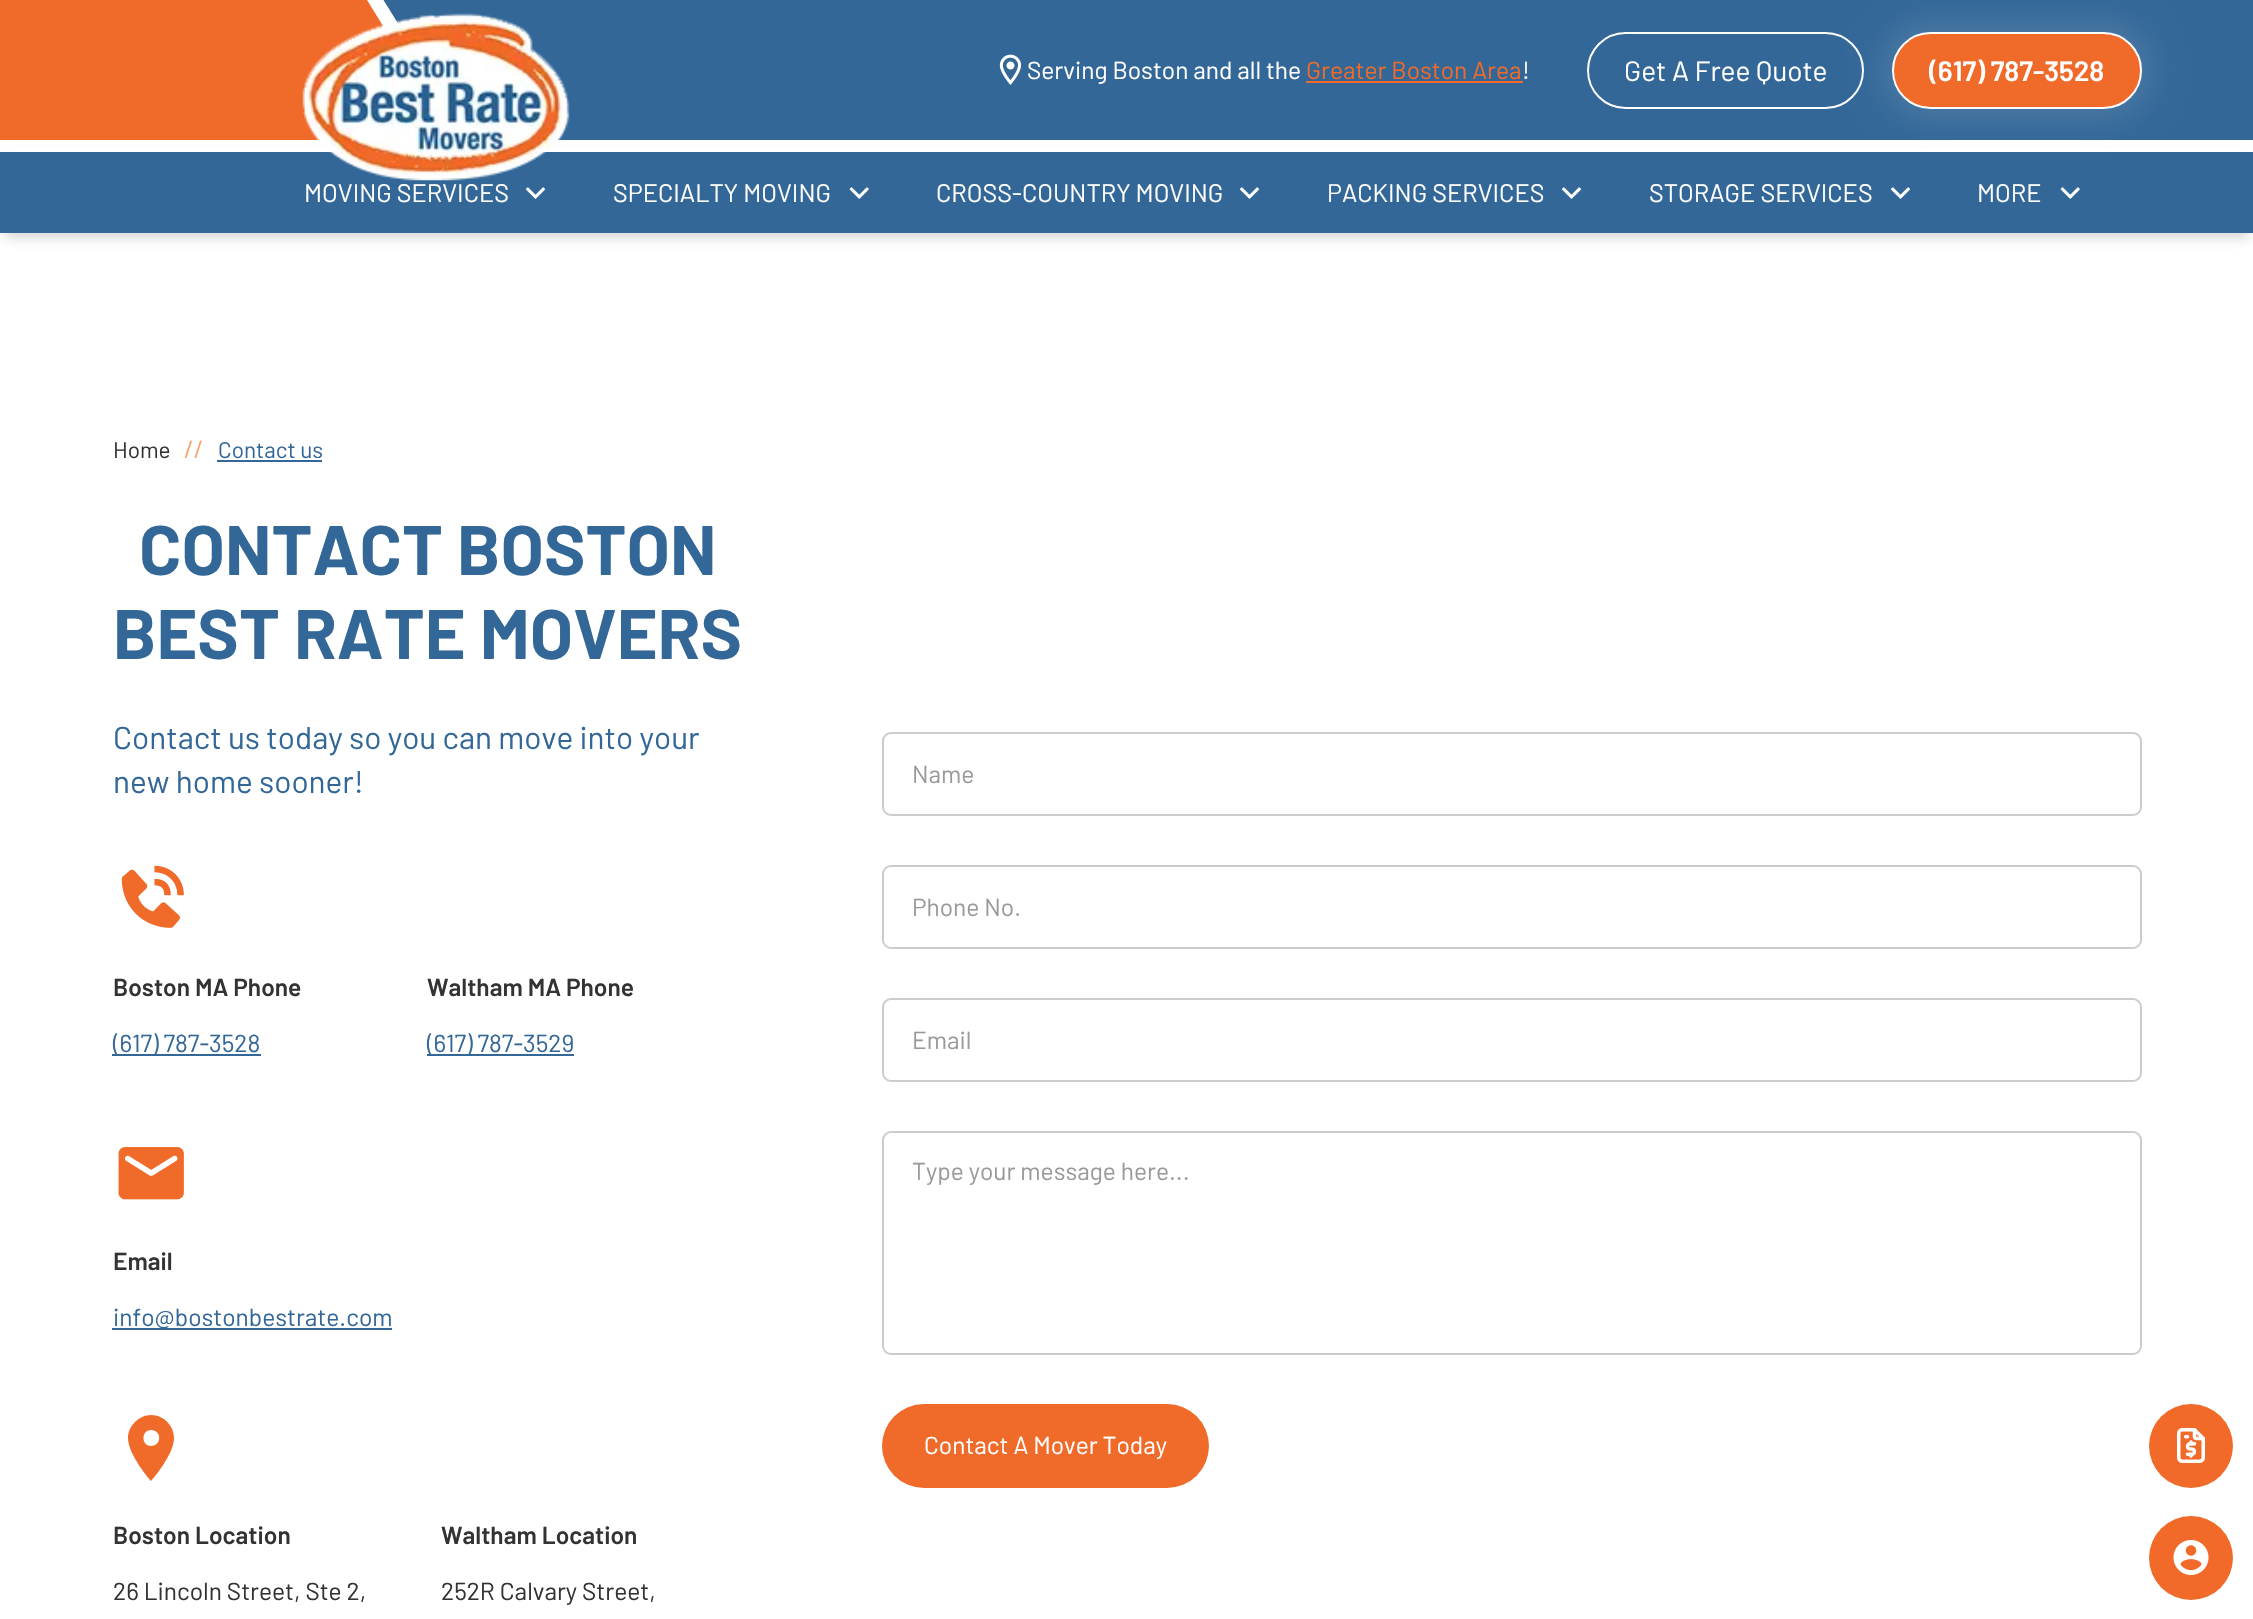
void draw(SkCanvas* canvas) {
  SkPaint paint;
  paint.setAntiAlias(true);
  auto face = [&](const char* family, int weight, float size, bool italic = false) {
    SkFontStyle style(weight, SkFontStyle::kNormal_Width,
      italic ? SkFontStyle::kItalic_Slant : SkFontStyle::kUpright_Slant);
    SkFont result(fontMgr->matchFamilyStyle(family, style), size);
    result.setSubpixel(true);
    return result;
  };
  auto paste = [&](const char* path, float x, float y, float w, float h) {
    auto image = SkImages::DeferredFromEncodedData(SkData::MakeFromFileName(path));
    canvas->drawImageRect(image, SkRect::MakeXYWH(x, y, w, h), SkSamplingOptions());
  };
  auto shape = [&](const char* data, bool evenOdd = false) {
    SkPath result = *SkParsePath::FromSVGString(data);
    if (evenOdd) result.setFillType(SkPathFillType::kEvenOdd);
    return result;
  };
  canvas->clear(0xffffffff);
  paint.setColor(0x33333333);
  paint.setMaskFilter(SkMaskFilter::MakeBlur(kNormal_SkBlurStyle, 6));
  canvas->drawRect(SkRect::MakeXYWH(5, 156, 2244, 82), paint);
  paint.setMaskFilter(nullptr);
  paint.setColor(0xff326798);
  canvas->drawRect(SkRect::MakeXYWH(383, 0, 1870, 140), paint);
  canvas->save();
  canvas->clipRect(SkRect::MakeXYWH(0, 0, 676, 140));
  paint.setColor(0xffffffff);
  canvas->drawPath(shape("M0-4H381L530 237H0Z"), paint);
  paint.setColor(0xfff06a29);
  canvas->drawPath(shape("M0 0H367L511 233H0Z"), paint);
  canvas->restore();
  paint.setColor(0xff326798);
  canvas->drawRect(SkRect::MakeXYWH(0, 152, 2253, 81), paint);
  paint.setColor(0xffffffff);
  canvas->drawRect(SkRect::MakeXYWH(2, 147, 2250, 5), paint);
  paste("img/1.png", 302, 13, 268, 168);
  paste("img/2.png", 999, 54, 23, 31);
  paint.setColor(0xfff06a29);
  canvas->drawRect(SkRect::MakeXYWH(1306, 81, 217, 2), paint);
  paint.setStroke(true);
  paint.setStrokeWidth(2);
  paint.setColor(0xffffffff);
  canvas->drawRoundRect(SkRect::MakeXYWH(1588, 33, 275, 75), 37.5f, 37.5f, paint);
  paint.setStroke(false);
  paint.setColor(0x26efeeee);
  paint.setMaskFilter(SkMaskFilter::MakeBlur(kNormal_SkBlurStyle, 17.5f));
  canvas->drawRoundRect(SkRect::MakeXYWH(1883, 23, 268, 94), 47, 47, paint);
  paint.setMaskFilter(nullptr);
  paint.setColor(0xfff06a29);
  canvas->drawRoundRect(SkRect::MakeXYWH(1893, 33, 248, 75), 37.5f, 37.5f, paint);
  paint.setStroke(true);
  paint.setColor(0xffffffff);
  canvas->drawRoundRect(SkRect::MakeXYWH(1893, 33, 248, 75), 37.5f, 37.5f, paint);
  paste("img/3.png", 525, 187, 21, 12);
  paste("img/4.png", 849, 187, 20, 12);
  paste("img/3.png", 1239, 187, 21, 12);
  paste("img/3.png", 1561, 187, 21, 12);
  paste("img/3.png", 1890, 187, 21, 12);
  paste("img/4.png", 2060, 187, 20, 12);
  paint.setStroke(false);
  paint.setColor(0xff326798);
  canvas->drawRect(SkRect::MakeXYWH(217, 460, 105, 2), paint);
  paste("img/5.png", 121, 865, 63, 63);
  canvas->drawRect(SkRect::MakeXYWH(112, 1054, 149, 2), paint);
  canvas->drawRect(SkRect::MakeXYWH(427, 1054, 147, 2), paint);
  paste("img/6.png", 118, 1147, 66, 53);
  canvas->drawRect(SkRect::MakeXYWH(112, 1328, 280, 2), paint);
  paint.setColor(0xfff06a29);
  canvas->drawPath(shape("M151 1415C139 1415 128 1426 128 1438C128 1455 151 1481 151 1481C151 1481 174 1455 174 1438C174 1426 164 1415 151 1415ZM151 1446C141 1446 141 1430 151 1430C162 1430 162 1446 151 1446Z"), paint);
  paint.setStroke(true);
  paint.setColor(0xffcccccc);
  canvas->drawRoundRect(SkRect::MakeXYWH(883, 733, 1258, 82), 8, 8, paint);
  canvas->drawRoundRect(SkRect::MakeXYWH(883, 866, 1258, 82), 8, 8, paint);
  canvas->drawRoundRect(SkRect::MakeXYWH(883, 999, 1258, 82), 8, 8, paint);
  canvas->drawRoundRect(SkRect::MakeXYWH(883, 1132, 1258, 222), 8, 8, paint);
  paint.setStroke(false);
  paint.setColor(0xfff06a29);
  canvas->drawRoundRect(SkRect::MakeXYWH(882, 1404, 327, 84), 42, 42, paint);
  paint.setColor(0xfff16a29);
  canvas->drawCircle(2191, 1446, 42, paint);
  paste("img/7.png", 2177, 1428, 28, 35);
  canvas->drawCircle(2191, 1558, 42, paint);
  paste("img/8.png", 2173, 1540, 36, 35);
  auto f0 = face("Barlow", 400, 24.5f);
  paint.setColor(0xffffffff);
  canvas->drawString("Serving Boston and all the", 1027, 79, f0, paint);
  paint.setColor(0xfff06a29);
  canvas->drawString("Greater Boston Area", 1306, 79, f0, paint);
  paint.setColor(0xffffffff);
  canvas->drawString("!", 1522, 79, f0, paint);
  auto f1 = face("Barlow", 400, 28);
  canvas->drawString("Get A Free Quote", 1624, 81, f1, paint);
  auto f2 = face("Barlow", 600, 28);
  canvas->drawString("(617) 787-3528", 1929, 81, f2, paint);
  auto f3 = face("Barlow", 400, 25.25f);
  {
    const struct { const char* s; float x, y; } items[] = {
      {"MOVING SERVICES", 304, 202},
      {"SPECIALTY MOVING", 613, 202},
      {"CROSS-COUNTRY MOVING", 936, 202},
      {"PACKING SERVICES", 1327, 202},
      {"STORAGE SERVICES", 1649, 202},
      {"MORE", 1977, 202},
    };
    for (auto [s, x, y] : items) {
      canvas->drawString(s, x, y, f3, paint);
    }
  }
  auto f4 = face("Barlow", 400, 22.5f);
  paint.setColor(0xff333333);
  canvas->drawString("Home", 113, 458, f4, paint);
  paint.setColor(0xfff9a26c);
  canvas->drawString("//", 184, 458, f0, paint);
  paint.setColor(0xff326798);
  canvas->drawString("Contact us", 218, 458, f4, paint);
  auto f5 = face("Barlow", 700, 70);
  canvas->drawString("CONTACT BOSTON", 139, 575, f5, paint);
  canvas->drawString("BEST RATE MOVERS", 113, 659, f5, paint);
  auto f6 = face("Barlow", 400, 31.5f);
  canvas->drawString("Contact us today so you can move into your", 113, 749, f6, paint);
  canvas->drawString("new home sooner!", 113, 793, f6, paint);
  auto f7 = face("Barlow", 600, 24.5f);
  paint.setColor(0xff333333);
  canvas->drawString("Boston MA Phone", 113, 996, f7, paint);
  paint.setColor(0xff326798);
  canvas->drawString("(617) 787-3528", 113, 1052, f0, paint);
  paint.setColor(0xff333333);
  canvas->drawString("Waltham MA Phone", 427, 996, f7, paint);
  paint.setColor(0xff326798);
  canvas->drawString("(617) 787-3529", 427, 1052, f0, paint);
  paint.setColor(0xff333333);
  canvas->drawString("Email", 113, 1270, f7, paint);
  paint.setColor(0xff326798);
  canvas->drawString("info@bostonbestrate.com", 113, 1326, f0, paint);
  paint.setColor(0xff333333);
  canvas->drawString("Boston Location", 113, 1544, f7, paint);
  canvas->drawString("26 Lincoln Street, Ste 2,", 113, 1600, f0, paint);
  canvas->drawString("Waltham Location", 441, 1544, f7, paint);
  canvas->drawString("252R Calvary Street,", 441, 1600, f0, paint);
  paint.setColor(0xff999999);
  {
    const struct { const char* s; float x, y; } items[] = {
      {"Name", 912, 783},
      {"Phone No.", 912, 916},
      {"Email", 912, 1049},
      {"Type your message here...", 912, 1180},
    };
    for (auto [s, x, y] : items) {
      canvas->drawString(s, x, y, f0, paint);
    }
  }
  paint.setColor(0xffffffff);
  canvas->drawString("Contact A Mover Today", 924, 1454, f0, paint);
}
